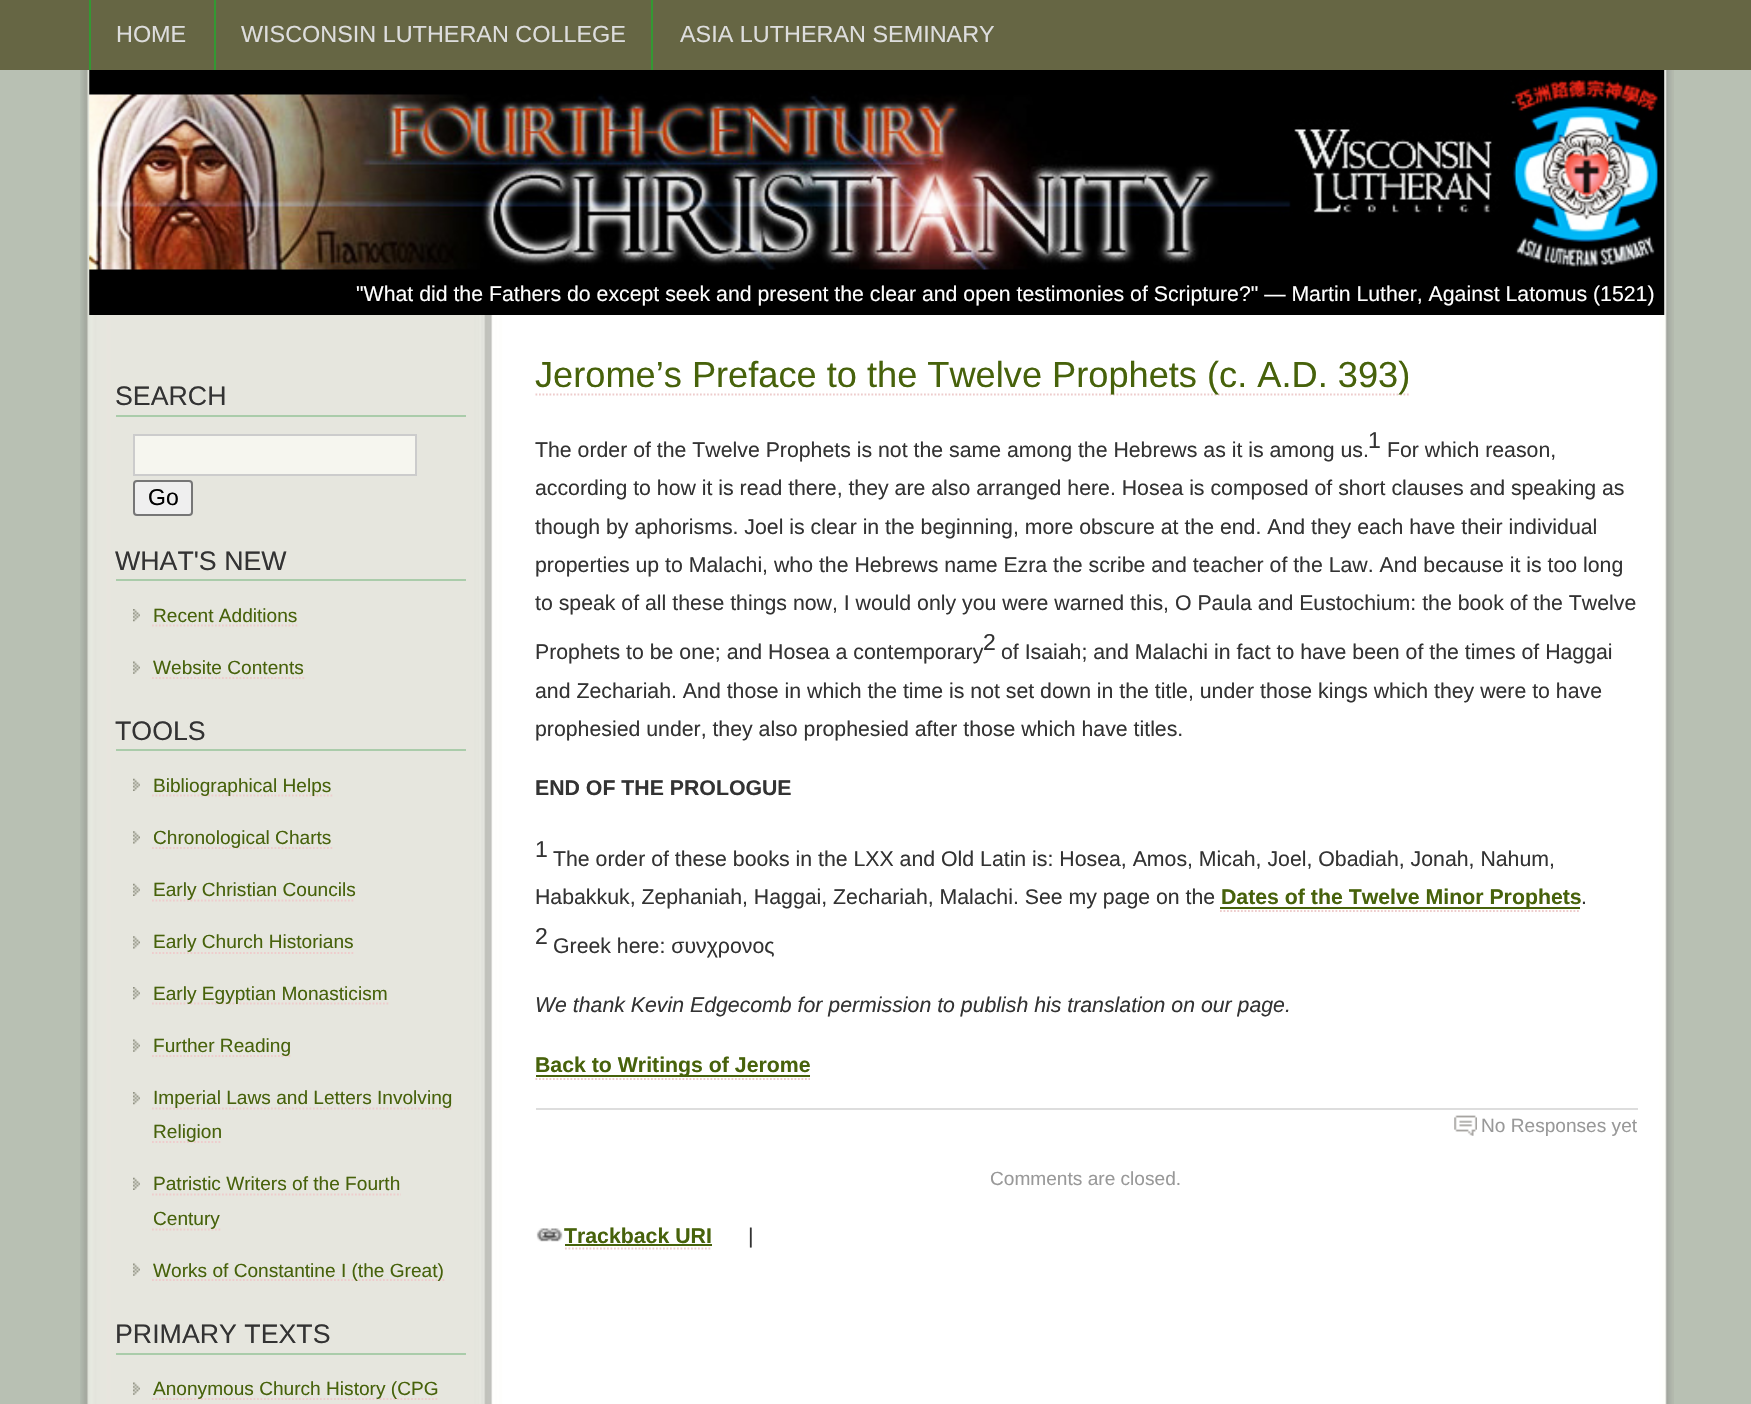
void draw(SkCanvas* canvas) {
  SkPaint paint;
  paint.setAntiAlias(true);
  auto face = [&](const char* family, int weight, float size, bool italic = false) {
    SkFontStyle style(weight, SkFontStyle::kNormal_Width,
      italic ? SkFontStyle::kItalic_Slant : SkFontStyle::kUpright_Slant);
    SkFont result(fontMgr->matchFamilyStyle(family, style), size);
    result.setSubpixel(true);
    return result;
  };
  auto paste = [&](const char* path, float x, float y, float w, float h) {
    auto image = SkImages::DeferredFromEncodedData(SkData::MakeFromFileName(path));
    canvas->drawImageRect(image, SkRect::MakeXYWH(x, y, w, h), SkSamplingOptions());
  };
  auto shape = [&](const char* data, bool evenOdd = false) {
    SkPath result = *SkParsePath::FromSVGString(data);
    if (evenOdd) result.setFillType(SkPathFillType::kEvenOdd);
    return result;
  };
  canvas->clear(0xffb8c0b3);
  paste("img/1.png", 80, 70, 1594, 1334);
  {
    const struct { float x, y, w, h; SkColor color; } items[] = {
      {0, 0, 1751, 70, 0xff666644},
      {89, 0, 2, 70, 0xff339933},
      {214, 0, 2, 70, 0xff339933},
      {651, 0, 2, 70, 0xff339933},
    };
    for (auto [x, y, w, h, color] : items) {
      paint.setColor(color);
      canvas->drawRect(SkRect::MakeXYWH(x, y, w, h), paint);
    }
  }
  paste("img/2.png", 89, 70, 1576, 245);
  paint.setColor(0xffaaccaa);
  canvas->drawRect(SkRect::MakeXYWH(116, 415, 350, 2), paint);
  paint.setColor(0xfff6f6ef);
  canvas->drawRect(SkRect::MakeXYWH(134, 435, 282, 40), paint);
  paint.setStroke(true);
  paint.setStrokeWidth(2);
  paint.setColor(0xffcccccc);
  canvas->drawRect(SkRect::MakeXYWH(134, 435, 282, 40), paint);
  paint.setStroke(false);
  paint.setColor(0xffefefef);
  canvas->drawRoundRect(SkRect::MakeXYWH(134, 481, 58, 34), 3, 3, paint);
  paint.setStroke(true);
  paint.setColor(0xff767676);
  canvas->drawRoundRect(SkRect::MakeXYWH(134, 481, 58, 34), 3, 3, paint);
  paint.setStroke(false);
  paint.setColor(0xffaaccaa);
  canvas->drawRect(SkRect::MakeXYWH(116, 579, 350, 2), paint);
  paste("img/3.png", 133, 609, 7, 13);
  paint.setStroke(true);
  paint.setStrokeWidth(1.8f);
  paint.setColor(0xffeecccc);
  paint.setPathEffect(SkDashPathEffect::Make({{1.75f, 1.75f}}, 0));
  canvas->drawPath(shape("M152 625.5H297.5"), paint);
  paint.setPathEffect(nullptr);
  paste("img/4.png", 133, 661, 7, 13);
  paint.setPathEffect(SkDashPathEffect::Make({{1.75f, 1.75f}}, 0));
  canvas->drawPath(shape("M152 678H304.5"), paint);
  paint.setPathEffect(nullptr);
  paint.setStroke(false);
  paint.setColor(0xffaaccaa);
  canvas->drawRect(SkRect::MakeXYWH(116, 749, 350, 2), paint);
  paste("img/5.png", 133, 778, 7, 13);
  paint.setStroke(true);
  paint.setColor(0xffeecccc);
  paint.setPathEffect(SkDashPathEffect::Make({{1.75f, 1.75f}}, 0));
  canvas->drawPath(shape("M152 795.5H332.5"), paint);
  paint.setPathEffect(nullptr);
  paste("img/6.png", 133, 831, 7, 13);
  paint.setPathEffect(SkDashPathEffect::Make({{1.75f, 1.75f}}, 0));
  canvas->drawPath(shape("M152 848H332.5"), paint);
  paint.setPathEffect(nullptr);
  paste("img/5.png", 133, 883, 7, 13);
  paint.setPathEffect(SkDashPathEffect::Make({{1.75f, 1.75f}}, 0));
  canvas->drawPath(shape("M152 900.5H355"), paint);
  paint.setPathEffect(nullptr);
  paste("img/6.png", 133, 936, 7, 13);
  paint.setPathEffect(SkDashPathEffect::Make({{1.75f, 1.75f}}, 0));
  canvas->drawPath(shape("M152 953H353.5"), paint);
  paint.setPathEffect(nullptr);
  paste("img/3.png", 133, 987, 7, 13);
  paint.setPathEffect(SkDashPathEffect::Make({{1.75f, 1.75f}}, 0));
  canvas->drawPath(shape("M152 1003.5H388.5"), paint);
  paint.setPathEffect(nullptr);
  paste("img/4.png", 133, 1039, 7, 13);
  paint.setPathEffect(SkDashPathEffect::Make({{1.75f, 1.75f}}, 0));
  canvas->drawPath(shape("M152 1056H290.5"), paint);
  paint.setPathEffect(nullptr);
  paste("img/3.png", 133, 1092, 7, 13);
  paint.setPathEffect(SkDashPathEffect::Make({{1.75f, 1.75f}}, 0));
  canvas->drawPath(shape("M152 1108.5H453"), paint);
  paint.setPathEffect(nullptr);
  paint.setPathEffect(SkDashPathEffect::Make({{1.75f, 1.75f}}, 0));
  canvas->drawPath(shape("M152 1142H222"), paint);
  paint.setPathEffect(nullptr);
  paste("img/5.png", 133, 1177, 7, 13);
  paint.setPathEffect(SkDashPathEffect::Make({{1.75f, 1.75f}}, 0));
  canvas->drawPath(shape("M152 1194.5H401"), paint);
  paint.setPathEffect(nullptr);
  paint.setPathEffect(SkDashPathEffect::Make({{1.75f, 1.75f}}, 0));
  canvas->drawPath(shape("M152 1229.5H220.5"), paint);
  paint.setPathEffect(nullptr);
  paste("img/4.png", 133, 1263, 7, 13);
  paint.setPathEffect(SkDashPathEffect::Make({{1.75f, 1.75f}}, 0));
  canvas->drawPath(shape("M152 1280H444.5"), paint);
  paint.setPathEffect(nullptr);
  paint.setStroke(false);
  paint.setColor(0xffaaccaa);
  canvas->drawRect(SkRect::MakeXYWH(116, 1353, 350, 2), paint);
  paste("img/4.png", 133, 1382, 7, 13);
  paint.setStroke(true);
  paint.setColor(0xffeecccc);
  paint.setPathEffect(SkDashPathEffect::Make({{1.75f, 1.75f}}, 0));
  canvas->drawPath(shape("M152 1399H439"), paint);
  paint.setPathEffect(nullptr);
  paint.setPathEffect(SkDashPathEffect::Make({{1.75f, 1.75f}}, 0));
  canvas->drawPath(shape("M535.5 394.5H1409"), paint);
  paint.setPathEffect(nullptr);
  paint.setPathEffect(SkDashPathEffect::Make({{1.75f, 1.75f}}, 0));
  canvas->drawPath(shape("M1220 911H1580"), paint);
  paint.setPathEffect(nullptr);
  paint.setStroke(false);
  paint.setColor(0xff47620b);
  canvas->drawRect(SkRect::MakeXYWH(1220, 907, 360, 2), paint);
  paint.setStroke(true);
  paint.setColor(0xffeecccc);
  paint.setPathEffect(SkDashPathEffect::Make({{1.75f, 1.75f}}, 0));
  canvas->drawPath(shape("M535.5 1079H810"), paint);
  paint.setPathEffect(nullptr);
  paint.setStroke(false);
  paint.setColor(0xff47620b);
  canvas->drawRect(SkRect::MakeXYWH(536, 1075, 274, 2), paint);
  paint.setColor(0xffdddddd);
  canvas->drawRect(SkRect::MakeXYWH(536, 1108, 1102, 2), paint);
  paste("img/7.png", 1454, 1115, 23, 21);
  paste("img/8.png", 536, 1228, 27, 14);
  paint.setStroke(true);
  paint.setColor(0xffeecccc);
  paint.setPathEffect(SkDashPathEffect::Make({{1.75f, 1.75f}}, 0));
  canvas->drawPath(shape("M565 1248.5H712"), paint);
  paint.setPathEffect(nullptr);
  paint.setStroke(false);
  paint.setColor(0xff47620b);
  canvas->drawRect(SkRect::MakeXYWH(565, 1244, 147, 2), paint);
  auto f0 = face("Liberation Sans", 400, 23.4f);
  paint.setColor(0xffdddddd);
  {
    const struct { const char* s; float x, y; } items[] = {
      {"HOME", 116, 42},
      {"WISCONSIN LUTHERAN COLLEGE", 241, 42},
      {"ASIA LUTHERAN SEMINARY", 680, 42},
    };
    for (auto [s, x, y] : items) {
      canvas->drawString(s, x, y, f0, paint);
    }
  }
  auto f1 = face("Liberation Sans", 400, 21.28f);
  paint.setColor(0xffffffff);
  canvas->drawString("\"What did the Fathers do except seek and present the clear and open testimonies of Scripture?\" — Martin Luther, Against Latomus (1521)", 356, 301, f1, paint);
  auto f2 = face("Liberation Sans", 400, 26.75f);
  paint.setColor(0xff333333);
  canvas->drawString("SEARCH", 115, 405, f2, paint);
  auto f3 = face("Liberation Sans", 400, 23);
  paint.setColor(0xff000000);
  canvas->drawString("Go", 148, 505, f3, paint);
  paint.setColor(0xff333333);
  canvas->drawString("WHAT'S NEW", 115, 570, f2, paint);
  auto f4 = face("Liberation Sans", 400, 19.1f);
  paint.setColor(0xff47620b);
  canvas->drawString("Recent Additions", 153, 622, f4, paint);
  canvas->drawString("Website Contents", 153, 674, f4, paint);
  paint.setColor(0xff333333);
  canvas->drawString("TOOLS", 115, 740, f2, paint);
  paint.setColor(0xff47620b);
  {
    const struct { const char* s; float x, y; } items[] = {
      {"Bibliographical Helps", 153, 792},
      {"Chronological Charts", 153, 844},
      {"Early Christian Councils", 153, 896},
      {"Early Church Historians", 153, 948},
      {"Early Egyptian Monasticism", 153, 1000},
      {"Further Reading", 153, 1052},
      {"Imperial Laws and Letters Involving", 153, 1104},
      {"Religion", 153, 1138},
      {"Patristic Writers of the Fourth", 153, 1190},
      {"Century", 153, 1225},
      {"Works of Constantine I (the Great)", 153, 1277},
    };
    for (auto [s, x, y] : items) {
      canvas->drawString(s, x, y, f4, paint);
    }
  }
  paint.setColor(0xff333333);
  canvas->drawString("PRIMARY TEXTS", 115, 1343, f2, paint);
  paint.setColor(0xff47620b);
  canvas->drawString("Anonymous Church History (CPG", 153, 1395, f4, paint);
  auto f5 = face("Liberation Sans", 400, 36.2f);
  canvas->drawString("Jerome’s Preface to the Twelve Prophets (c. A.D. 393)", 535, 387, f5, paint);
  paint.setColor(0xff333333);
  canvas->drawString("The order of the Twelve Prophets is not the same among the Hebrews as it is among us.", 535, 457, f1, paint);
  canvas->drawString("1", 1368, 448, f3, paint);
  {
    const struct { const char* s; float x, y; } items[] = {
      {"For which reason,", 1387, 457},
      {"according to how it is read there, they are also arranged here. Hosea is composed of short clauses and speaking as", 535, 495},
      {"though by aphorisms. Joel is clear in the beginning, more obscure at the end. And they each have their individual", 535, 534},
      {"properties up to Malachi, who the Hebrews name Ezra the scribe and teacher of the Law. And because it is too long", 535, 572},
      {"to speak of all these things now, I would only you were warned this, O Paula and Eustochium: the book of the Twelve", 535, 610},
      {"Prophets to be one; and Hosea a contemporary", 535, 659},
    };
    for (auto [s, x, y] : items) {
      canvas->drawString(s, x, y, f1, paint);
    }
  }
  canvas->drawString("2", 983, 650, f3, paint);
  {
    const struct { const char* s; float x, y; } items[] = {
      {"of Isaiah; and Malachi in fact to have been of the times of Haggai", 1001, 659},
      {"and Zechariah. And those in which the time is not set down in the title, under those kings which they were to have", 535, 698},
      {"prophesied under, they also prophesied after those which have titles.", 535, 736},
    };
    for (auto [s, x, y] : items) {
      canvas->drawString(s, x, y, f1, paint);
    }
  }
  auto f6 = face("Liberation Sans", 700, 21.28f);
  canvas->drawString("END OF THE PROLOGUE", 535, 795, f6, paint);
  canvas->drawString("1", 535, 857, f3, paint);
  canvas->drawString("The order of these books in the LXX and Old Latin is: Hosea, Amos, Micah, Joel, Obadiah, Jonah, Nahum,", 553, 866, f1, paint);
  canvas->drawString("Habakkuk, Zephaniah, Haggai, Zechariah, Malachi. See my page on the", 535, 904, f1, paint);
  paint.setColor(0xff47620b);
  canvas->drawString("Dates of the Twelve Minor Prophets", 1221, 904, f6, paint);
  paint.setColor(0xff333333);
  canvas->drawString(".", 1581, 904, f1, paint);
  canvas->drawString("2", 535, 944, f3, paint);
  canvas->drawString("Greek here: συνχρονος", 553, 953, f1, paint);
  auto f7 = face("Liberation Sans", 400, 21.28f, true);
  canvas->drawString("We thank Kevin Edgecomb for permission to publish his translation on our page.", 535, 1012, f7, paint);
  paint.setColor(0xff47620b);
  canvas->drawString("Back to Writings of Jerome", 535, 1072, f6, paint);
  paint.setColor(0xff999999);
  canvas->drawString("No Responses yet", 1481, 1132, f4, paint);
  canvas->drawString("Comments are closed.", 990, 1185, f4, paint);
  paint.setColor(0xff47620b);
  canvas->drawString("Trackback URI", 564, 1243, f6, paint);
  paint.setColor(0xff333333);
  canvas->drawString("|", 748, 1243, f1, paint);
}
